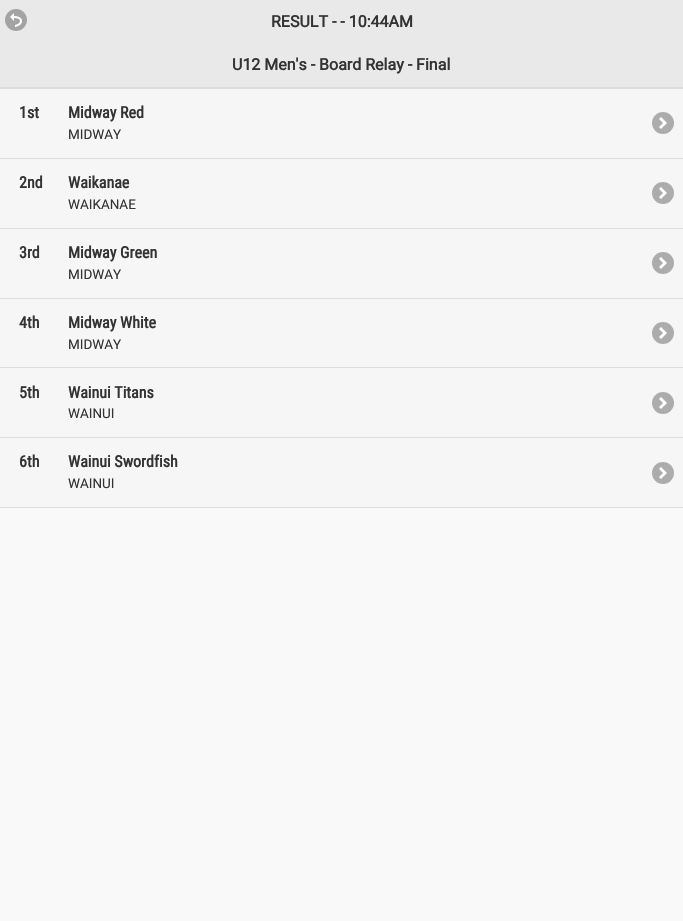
void draw(SkCanvas* canvas) {
  SkPaint paint;
  paint.setAntiAlias(true);
  auto face = [&](const char* family, int weight, float size, bool italic = false) {
    SkFontStyle style(weight, SkFontStyle::kNormal_Width,
      italic ? SkFontStyle::kItalic_Slant : SkFontStyle::kUpright_Slant);
    SkFont result(fontMgr->matchFamilyStyle(family, style), size);
    result.setSubpixel(true);
    return result;
  };
  auto paste = [&](const char* path, float x, float y, float w, float h) {
    auto image = SkImages::DeferredFromEncodedData(SkData::MakeFromFileName(path));
    canvas->drawImageRect(image, SkRect::MakeXYWH(x, y, w, h), SkSamplingOptions());
  };
  auto shape = [&](const char* data, bool evenOdd = false) {
    SkPath result = *SkParsePath::FromSVGString(data);
    if (evenOdd) result.setFillType(SkPathFillType::kEvenOdd);
    return result;
  };
  canvas->clear(0xfff9f9f9);
  paint.setColor(0xffe9e9e9);
  canvas->drawRect(SkRect::MakeXYWH(0, 0, 683, 87), paint);
  paint.setColor(0xfff0f0f0);
  canvas->drawPath(shape("M5 20.5C4.5 35.5 27.5 35.5 27 20.5C26.5 34.5 5.5 34.5 5 20.5Z"), paint);
  paint.setColor(0xffa3a3a3);
  canvas->drawCircle(16, 20, 11, paint);
  paste("img/1.png", 10, 13, 12, 14);
  paint.setColor(0xfff6f6f6);
  canvas->drawRect(SkRect::MakeXYWH(0, 89, 683, 69), paint);
  paint.setColor(0xffdddddd);
  canvas->drawRect(SkRect::MakeXYWH(0, 87, 683, 2), paint);
  paint.setColor(0xffacacac);
  canvas->drawCircle(663, 123, 11, paint);
  paste("img/2.png", 659, 117, 8, 12);
  paint.setColor(0xfff6f6f6);
  canvas->drawRect(SkRect::MakeXYWH(0, 159, 683, 69), paint);
  paint.setColor(0xffdddddd);
  canvas->drawRect(SkRect::MakeXYWH(0, 158, 683, 1), paint);
  paint.setColor(0xffacacac);
  canvas->drawCircle(663, 193, 11, paint);
  paste("img/2.png", 659, 187, 8, 12);
  paint.setColor(0xfff6f6f6);
  canvas->drawRect(SkRect::MakeXYWH(0, 229, 683, 69), paint);
  paint.setColor(0xffdddddd);
  canvas->drawRect(SkRect::MakeXYWH(0, 228, 683, 1), paint);
  paint.setColor(0xffacacac);
  canvas->drawCircle(663, 263, 11, paint);
  paste("img/2.png", 659, 257, 8, 12);
  paint.setColor(0xfff6f6f6);
  canvas->drawRect(SkRect::MakeXYWH(0, 299, 683, 68), paint);
  paint.setColor(0xffdddddd);
  canvas->drawRect(SkRect::MakeXYWH(0, 298, 683, 1), paint);
  paint.setColor(0xffacacac);
  canvas->drawCircle(663, 333, 11, paint);
  paste("img/2.png", 659, 327, 8, 12);
  paint.setColor(0xfff6f6f6);
  canvas->drawRect(SkRect::MakeXYWH(0, 368, 683, 69), paint);
  paint.setColor(0xffdddddd);
  canvas->drawRect(SkRect::MakeXYWH(0, 367, 683, 1), paint);
  paint.setColor(0xffacacac);
  canvas->drawCircle(663, 403, 11, paint);
  paste("img/2.png", 659, 397, 8, 12);
  {
    const struct { float x, y, w, h; SkColor color; } items[] = {
      {0, 438, 683, 69, 0xfff6f6f6},
      {0, 437, 683, 1, 0xffdddddd},
      {0, 507, 683, 1, 0xffdddddd},
    };
    for (auto [x, y, w, h, color] : items) {
      paint.setColor(color);
      canvas->drawRect(SkRect::MakeXYWH(x, y, w, h), paint);
    }
  }
  paint.setColor(0xffacacac);
  canvas->drawCircle(663, 473, 11, paint);
  paste("img/2.png", 659, 467, 8, 12);
  auto f0 = face("Roboto", 700, 16);
  paint.setColor(0xff333333);
  canvas->drawString("RESULT - - 10:44AM", 271, 27, f0, paint);
  canvas->drawString("U12 Men's - Board Relay - Final", 232, 70, f0, paint);
  auto f1 = face("Roboto Condensed", 700, 16);
  canvas->drawString("1st", 19, 118, f1, paint);
  canvas->drawString("Midway Red", 68, 118, f1, paint);
  auto f2 = face("Roboto", 400, 13.5f);
  canvas->drawString("MIDWAY", 68, 139, f2, paint);
  canvas->drawString("2nd", 19, 188, f1, paint);
  canvas->drawString("Waikanae", 68, 188, f1, paint);
  canvas->drawString("WAIKANAE", 68, 209, f2, paint);
  canvas->drawString("3rd", 19, 258, f1, paint);
  canvas->drawString("Midway Green", 68, 258, f1, paint);
  canvas->drawString("MIDWAY", 68, 279, f2, paint);
  canvas->drawString("4th", 19, 328, f1, paint);
  canvas->drawString("Midway White", 68, 328, f1, paint);
  canvas->drawString("MIDWAY", 68, 349, f2, paint);
  canvas->drawString("5th", 19, 398, f1, paint);
  canvas->drawString("Wainui Titans", 68, 398, f1, paint);
  canvas->drawString("WAINUI", 68, 418, f2, paint);
  canvas->drawString("6th", 19, 467, f1, paint);
  canvas->drawString("Wainui Swordfish", 68, 467, f1, paint);
  canvas->drawString("WAINUI", 68, 488, f2, paint);
}
